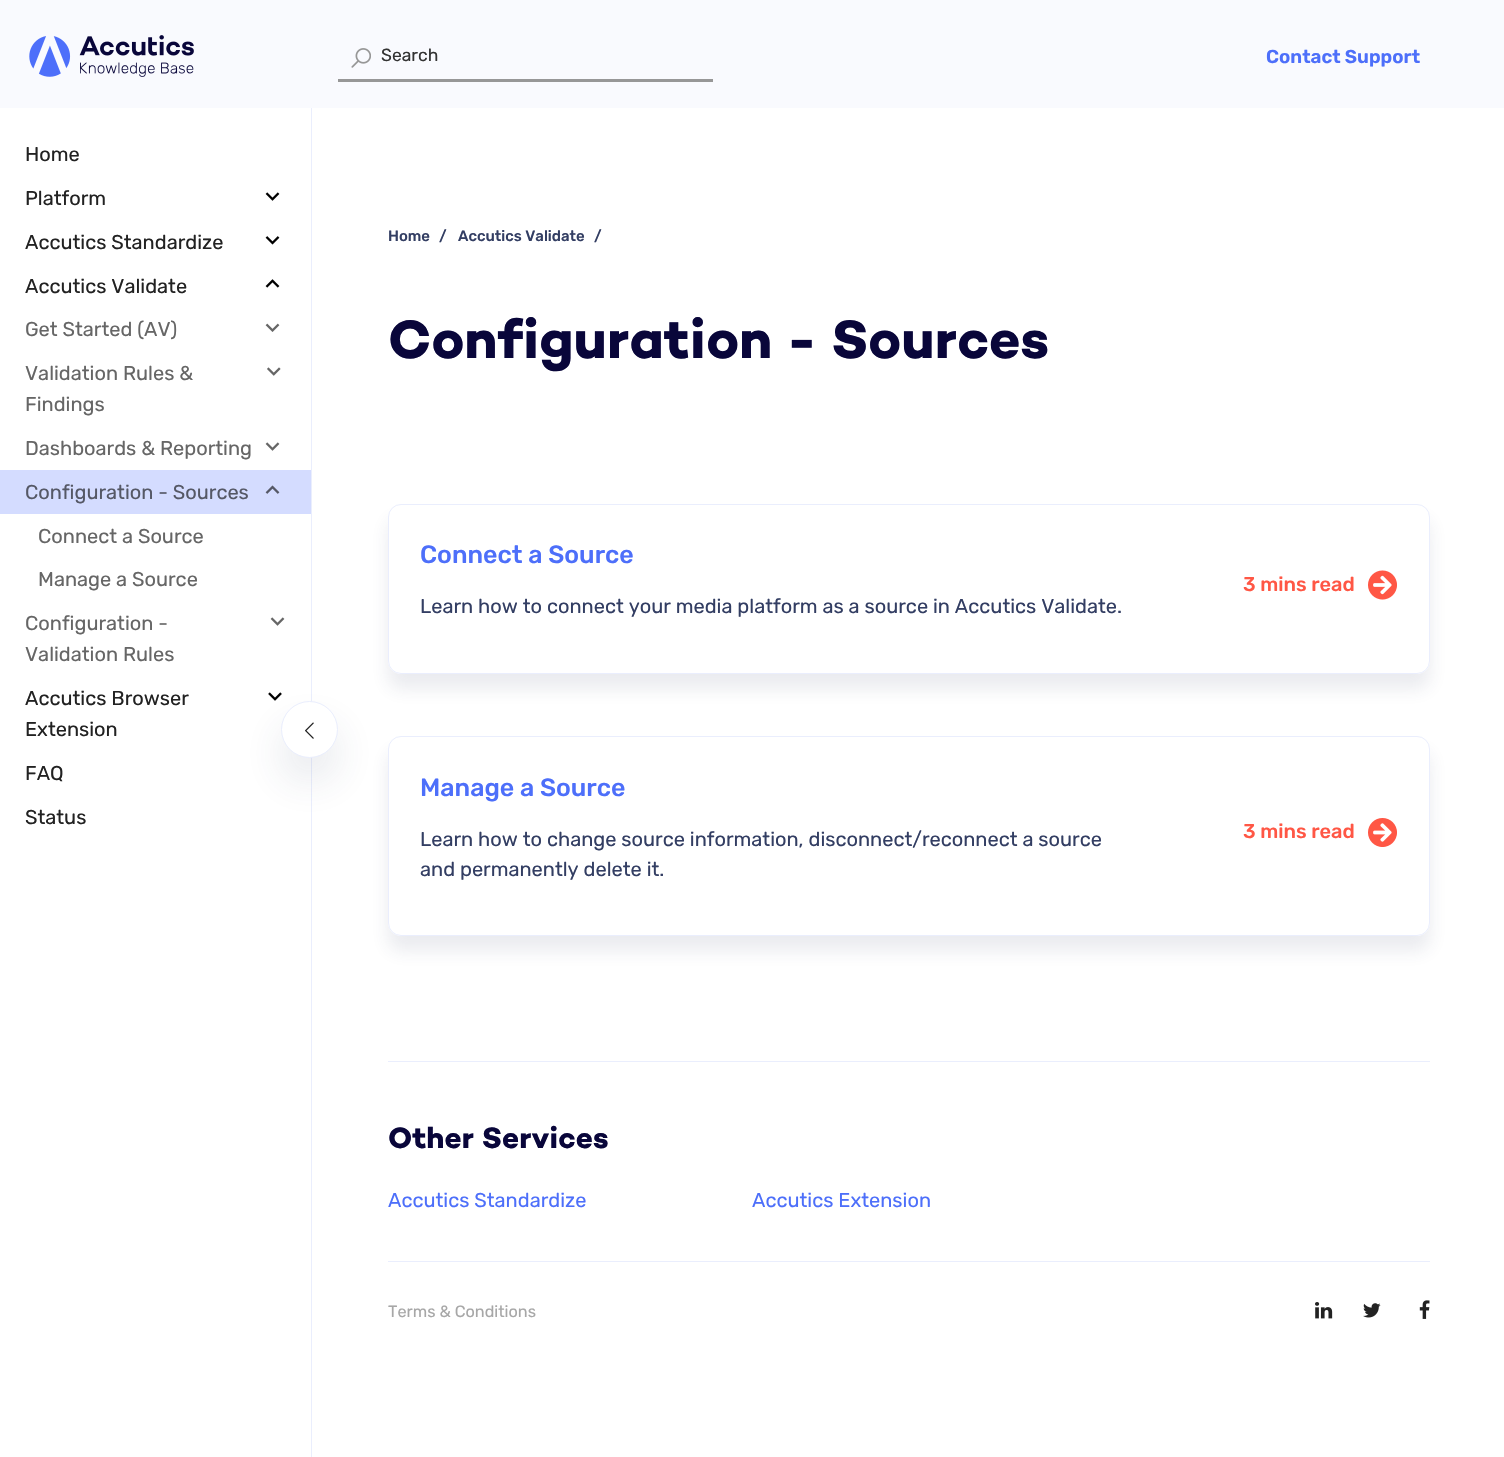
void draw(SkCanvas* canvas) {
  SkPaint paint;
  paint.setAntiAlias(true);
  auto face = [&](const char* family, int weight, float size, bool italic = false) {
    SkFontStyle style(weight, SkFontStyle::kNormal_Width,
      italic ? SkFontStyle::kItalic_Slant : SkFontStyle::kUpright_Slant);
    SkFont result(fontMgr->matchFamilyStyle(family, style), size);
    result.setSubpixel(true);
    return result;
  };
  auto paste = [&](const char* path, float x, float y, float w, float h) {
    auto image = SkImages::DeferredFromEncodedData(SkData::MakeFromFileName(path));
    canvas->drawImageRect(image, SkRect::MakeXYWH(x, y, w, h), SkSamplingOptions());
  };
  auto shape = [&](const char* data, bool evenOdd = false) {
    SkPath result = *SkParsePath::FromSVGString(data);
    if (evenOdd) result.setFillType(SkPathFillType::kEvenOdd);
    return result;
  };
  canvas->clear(0xffffffff);
  paint.setColor(0xfff9fafe);
  canvas->drawRect(SkRect::MakeXYWH(0, 0, 1504, 108), paint);
  paste("img/1.png", 29, 35, 165, 42);
  paste("img/2.png", 351, 48, 20, 20);
  paint.setColor(0xff979797);
  canvas->drawRect(SkRect::MakeXYWH(338, 79, 375, 3), paint);
  paint.setColor(0xffeaeefd);
  canvas->drawRect(SkRect::MakeXYWH(311, 108, 1, 1349), paint);
  paste("img/3.png", 265, 192, 15, 9);
  paste("img/4.png", 265, 236, 15, 9);
  paste("img/5.png", 265, 279, 15, 9);
  paste("img/6.png", 265, 323, 15, 9);
  paste("img/7.png", 267, 367, 14, 9);
  paste("img/8.png", 265, 442, 15, 9);
  paint.setColor(0xffd4dcff);
  canvas->drawRect(SkRect::MakeXYWH(0, 470, 311, 44), paint);
  paste("img/9.png", 265, 485, 15, 9);
  paste("img/8.png", 270, 617, 15, 9);
  paste("img/10.png", 268, 692, 14, 9);
  canvas->save();
  canvas->clipPath(shape("M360 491H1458V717H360ZM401 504H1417C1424 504 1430 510 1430 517V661C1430 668 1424 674 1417 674H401C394 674 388 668 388 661V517C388 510 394 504 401 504Z", true), true);
  paint.setColor(0x1a333e63);
  paint.setMaskFilter(SkMaskFilter::MakeBlur(kNormal_SkBlurStyle, 9));
  canvas->drawRoundRect(SkRect::MakeXYWH(388, 519, 1042, 170), 13, 13, paint);
  paint.setMaskFilter(nullptr);
  canvas->restore();
  paint.setStroke(true);
  paint.setStrokeWidth(1);
  paint.setColor(0xffeaeefd);
  canvas->drawRoundRect(SkRect::MakeXYWH(388.5f, 504.5f, 1041, 169), 12.5f, 12.5f, paint);
  canvas->save();
  canvas->clipPath(shape("M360 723H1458V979H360ZM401 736H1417C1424 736 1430 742 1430 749V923C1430 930 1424 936 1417 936H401C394 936 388 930 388 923V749C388 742 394 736 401 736Z", true), true);
  paint.setStroke(false);
  paint.setColor(0x1a333e63);
  paint.setMaskFilter(SkMaskFilter::MakeBlur(kNormal_SkBlurStyle, 9));
  canvas->drawRoundRect(SkRect::MakeXYWH(388, 751, 1042, 200), 13, 13, paint);
  paint.setMaskFilter(nullptr);
  canvas->restore();
  paint.setStroke(true);
  paint.setColor(0xffeaeefd);
  canvas->drawRoundRect(SkRect::MakeXYWH(388.5f, 736.5f, 1041, 199), 12.5f, 12.5f, paint);
  paint.setStroke(false);
  paint.setColor(0x1f333e63);
  paint.setMaskFilter(SkMaskFilter::MakeBlur(kNormal_SkBlurStyle, 21));
  canvas->drawRoundRect(SkRect::MakeXYWH(281, 725, 57, 56), 28, 28, paint);
  paint.setMaskFilter(nullptr);
  paint.setColor(0xffffffff);
  canvas->drawCircle(309.5f, 729.5f, 28, paint);
  paint.setStroke(true);
  paint.setColor(0xffeaeefd);
  canvas->drawCircle(309.5f, 729.5f, 28, paint);
  paste("img/11.png", 305, 722, 9, 17);
  paste("img/12.png", 1368, 570, 29, 30);
  paste("img/13.png", 1368, 818, 29, 29);
  paint.setStroke(false);
  canvas->drawRect(SkRect::MakeXYWH(388, 1061, 1042, 1), paint);
  canvas->drawRect(SkRect::MakeXYWH(388, 1261, 1042, 1), paint);
  paste("img/14.png", 1315, 1302, 18, 17);
  paste("img/15.png", 1363, 1303, 18, 15);
  paste("img/16.png", 1419, 1300, 11, 19);
  auto f0 = face("Rubik", 400, 17.5f);
  paint.setColor(0xff333333);
  canvas->drawString("Search", 381, 61, f0, paint);
  auto f1 = face("Rubik", 600, 18.75f);
  paint.setColor(0xff4d6ffa);
  canvas->drawString("Contact Support", 1266, 63, f1, paint);
  auto f2 = face("Rubik", 400, 20);
  paint.setColor(0xff222222);
  {
    const struct { const char* s; float x, y; } items[] = {
      {"Home", 25, 161},
      {"Platform", 25, 205},
      {"Accutics Standardize", 25, 249},
      {"Accutics Validate", 25, 293},
    };
    for (auto [s, x, y] : items) {
      canvas->drawString(s, x, y, f2, paint);
    }
  }
  paint.setColor(0xff666666);
  {
    const struct { const char* s; float x, y; } items[] = {
      {"Get Started (AV)", 25, 336},
      {"Validation Rules &", 25, 380},
      {"Findings", 25, 411},
      {"Dashboards & Reporting", 25, 455},
    };
    for (auto [s, x, y] : items) {
      canvas->drawString(s, x, y, f2, paint);
    }
  }
  paint.setColor(0xff555866);
  canvas->drawString("Configuration - Sources", 25, 499, f2, paint);
  paint.setColor(0xff666666);
  {
    const struct { const char* s; float x, y; } items[] = {
      {"Connect a Source", 38, 543},
      {"Manage a Source", 38, 586},
      {"Configuration -", 25, 630},
      {"Validation Rules", 25, 661},
    };
    for (auto [s, x, y] : items) {
      canvas->drawString(s, x, y, f2, paint);
    }
  }
  paint.setColor(0xff222222);
  {
    const struct { const char* s; float x, y; } items[] = {
      {"Accutics Browser", 25, 705},
      {"Extension", 25, 736},
      {"FAQ", 25, 780},
      {"Status", 25, 824},
    };
    for (auto [s, x, y] : items) {
      canvas->drawString(s, x, y, f2, paint);
    }
  }
  auto f3 = face("Rubik", 500, 15);
  paint.setColor(0xff333e63);
  {
    const struct { const char* s; float x, y; } items[] = {
      {"Home", 388, 241},
      {"/", 439, 241},
      {"Accutics Validate", 458, 241},
      {"/", 594, 241},
    };
    for (auto [s, x, y] : items) {
      canvas->drawString(s, x, y, f3, paint);
    }
  }
  auto f4 = face("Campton", 700, 55);
  paint.setColor(0xff09063a);
  canvas->drawString("Configuration - Sources", 388, 358, f4, paint);
  auto f5 = face("Rubik", 500, 25);
  paint.setColor(0xff4d6ffa);
  canvas->drawString("Connect a Source", 420, 563, f5, paint);
  paint.setColor(0xff333e63);
  canvas->drawString("Learn how to connect your media platform as a source in Accutics Validate.", 420, 613, f2, paint);
  auto f6 = face("Rubik", 500, 20);
  paint.setColor(0xffff5745);
  canvas->drawString("3 mins read", 1243, 591, f6, paint);
  paint.setColor(0xff4d6ffa);
  canvas->drawString("Manage a Source", 420, 796, f5, paint);
  paint.setColor(0xff333e63);
  canvas->drawString("Learn how to change source information, disconnect/reconnect a source", 420, 846, f2, paint);
  canvas->drawString("and permanently delete it.", 420, 876, f2, paint);
  paint.setColor(0xffff5745);
  canvas->drawString("3 mins read", 1243, 838, f6, paint);
  auto f7 = face("Campton", 700, 30);
  paint.setColor(0xff09063a);
  canvas->drawString("Other Services", 388, 1148, f7, paint);
  paint.setColor(0xff4d6ffa);
  canvas->drawString("Accutics Standardize", 388, 1207, f2, paint);
  canvas->drawString("Accutics Extension", 752, 1207, f2, paint);
  auto f8 = face("Rubik", 400, 16.25f);
  paint.setColor(0xffa7a7a7);
  canvas->drawString("Terms & Conditions", 388, 1317, f8, paint);
}
